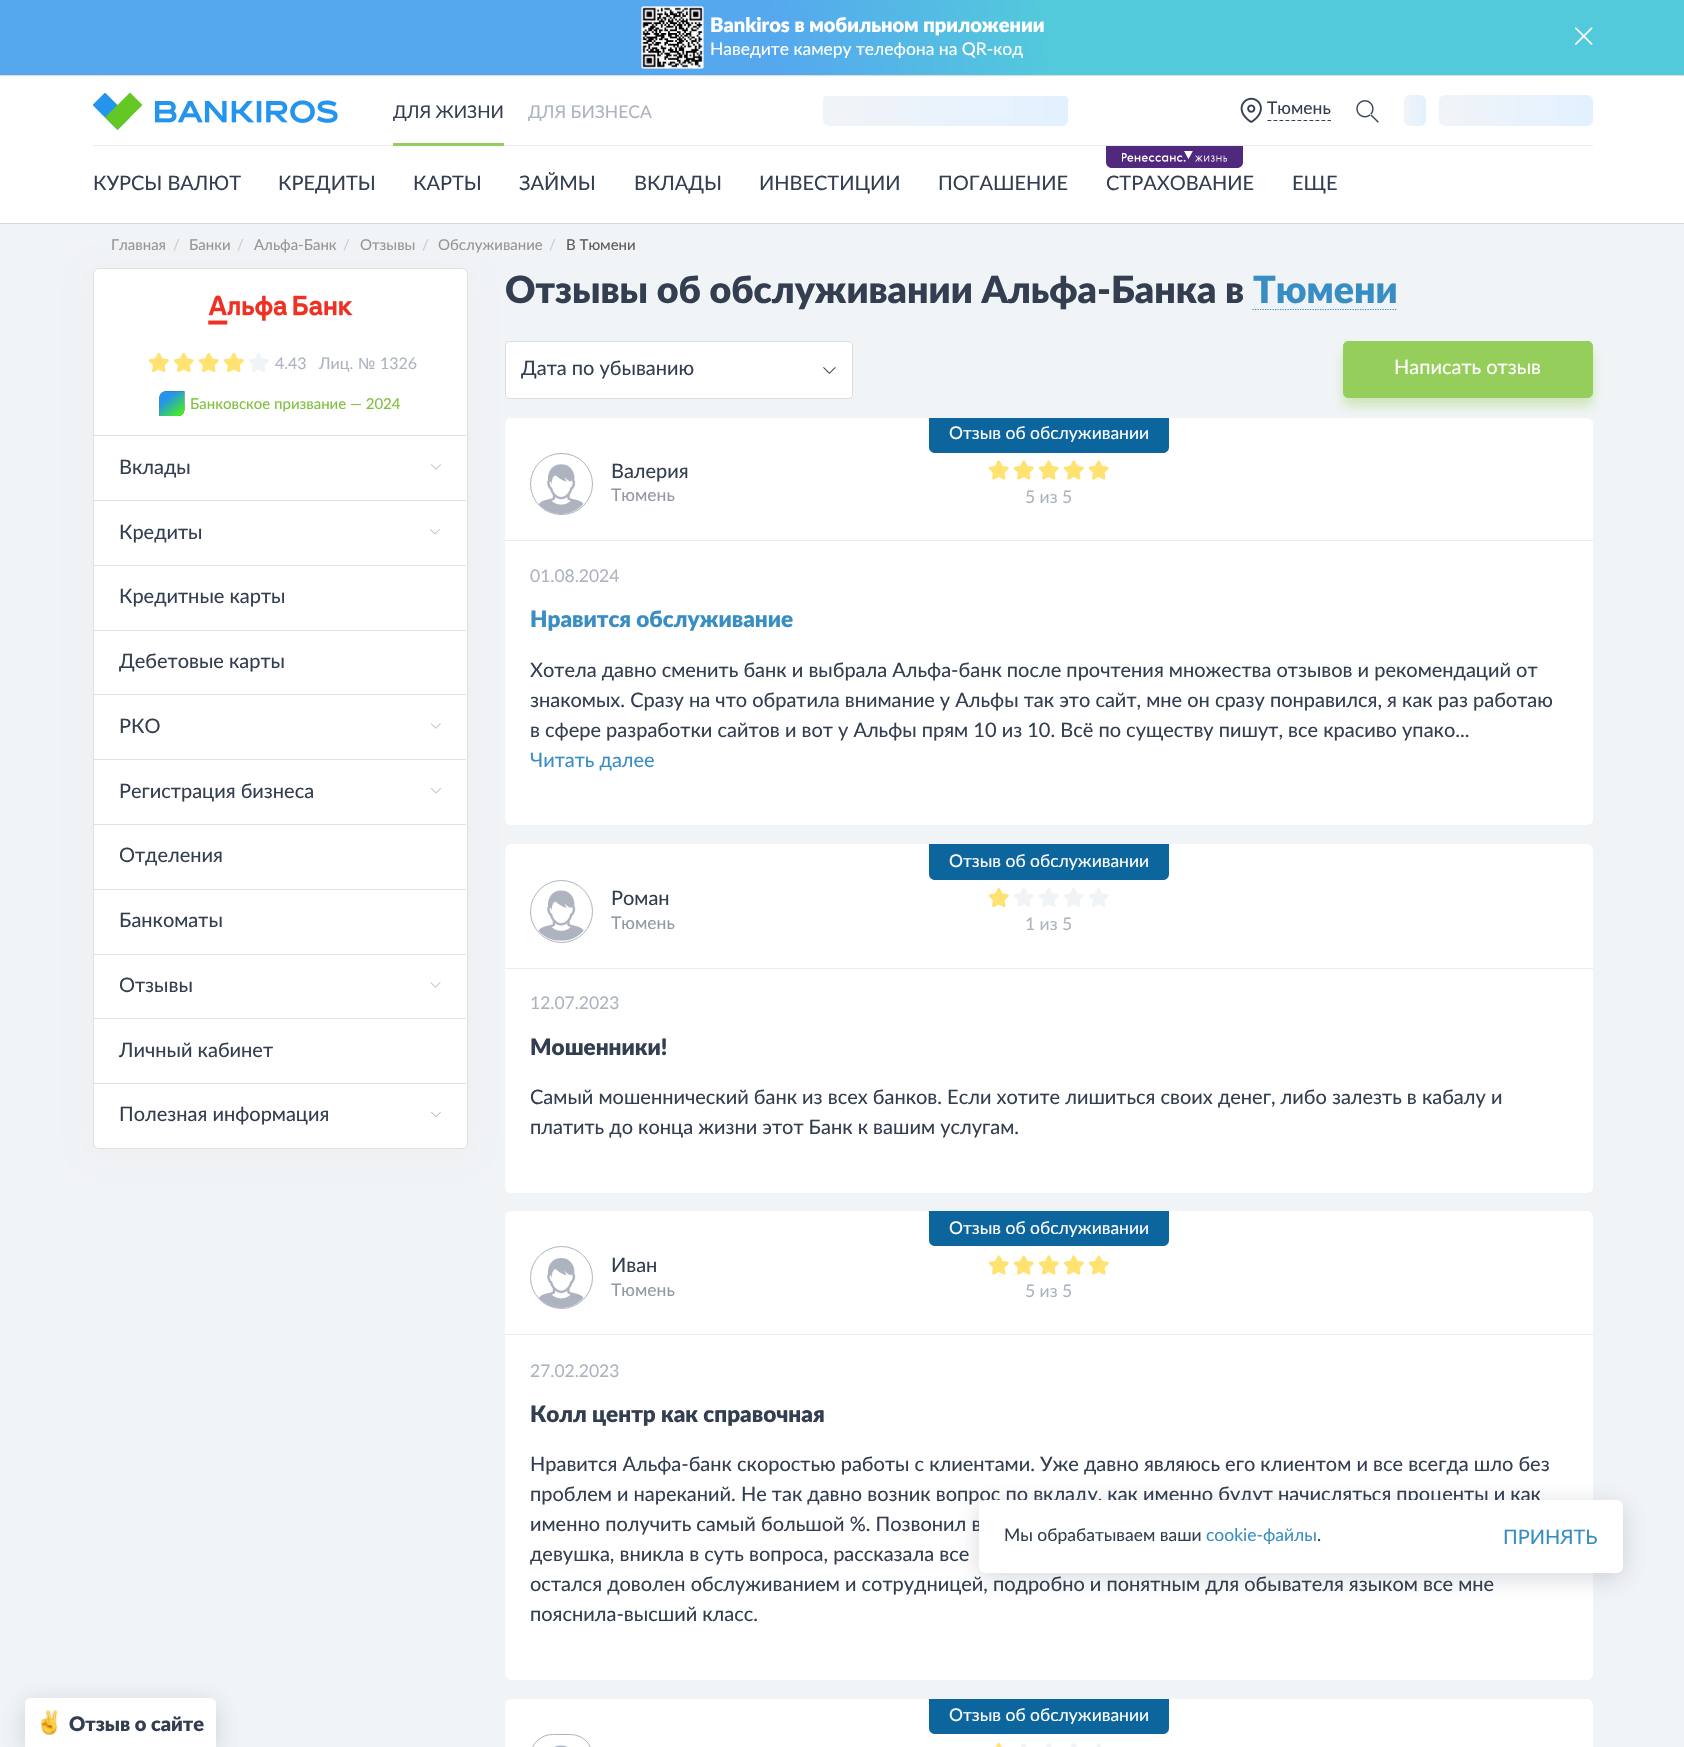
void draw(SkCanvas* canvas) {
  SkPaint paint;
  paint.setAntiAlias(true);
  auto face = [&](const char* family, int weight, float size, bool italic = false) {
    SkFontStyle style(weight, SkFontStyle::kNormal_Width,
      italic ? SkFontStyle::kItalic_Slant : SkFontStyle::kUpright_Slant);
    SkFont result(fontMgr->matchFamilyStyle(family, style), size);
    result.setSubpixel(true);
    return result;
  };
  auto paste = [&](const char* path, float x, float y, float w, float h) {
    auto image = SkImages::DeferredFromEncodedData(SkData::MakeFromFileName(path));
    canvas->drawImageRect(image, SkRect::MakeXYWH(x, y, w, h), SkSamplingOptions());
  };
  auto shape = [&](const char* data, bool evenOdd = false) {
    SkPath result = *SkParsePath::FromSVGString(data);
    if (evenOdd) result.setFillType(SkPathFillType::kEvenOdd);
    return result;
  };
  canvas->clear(0xfff1f4f7);
  {
    const SkColor colors[] = {0xff55a8ee, 0xff53c9dc};
    const float stops[] = {0.46f, 0.62f};
    const SkPoint ends[] = {{20, 186}, {1665, -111}};
    paint.setShader(SkGradientShader::MakeLinear(ends, colors, stops, 2, SkTileMode::kClamp));
    paint.setAlpha(255);
  }
  canvas->drawRect(SkRect::MakeXYWH(0, 0, 1684, 75), paint);
  paint.setShader(nullptr);
  paint.setColor(0xffdadee2);
  canvas->drawRect(SkRect::MakeXYWH(0, 75, 1684, 1), paint);
  paste("img/1.png", 641, 6, 63, 63);
  paste("img/2.png", 1575, 27, 18, 18);
  paint.setColor(0xffffffff);
  canvas->drawRect(SkRect::MakeXYWH(0, 76, 1684, 147), paint);
  paint.setColor(0xffe8ecef);
  canvas->drawRect(SkRect::MakeXYWH(93, 145, 1500, 1), paint);
  paste("img/3.png", 93, 93, 245, 37);
  paint.setColor(0xff95ce5a);
  canvas->drawRect(SkRect::MakeXYWH(393, 143, 111, 3), paint);
  canvas->save();
  canvas->clipPath(shape("M829 95H1062C1065.5 95 1068 97.5 1068 101V120C1068 123.5 1065.5 126 1062 126H829C825.5 126 823 123.5 823 120V101C823 97.5 825.5 95 829 95Z"), true);
  {
    const SkColor colors[] = {0xfff1f4f7, 0xffe2f1ff, 0xfff1f4f7};
    const float stops[] = {0, 0.5f, 0.98f};
    const SkPoint ends[] = {{823, 127}, {1313, 127}};
    paint.setShader(SkGradientShader::MakeLinear(ends, colors, stops, 3, SkTileMode::kClamp));
    paint.setAlpha(255);
  }
  canvas->drawPath(shape("M823 96H1068V120C1068 123.5 1065.5 126 1062 126H829C825.5 126 823 123.5 823 120Z"), paint);
  canvas->restore();
  paste("img/4.png", 1240, 97, 22, 26);
  paint.setStroke(true);
  paint.setStrokeWidth(1.2f);
  paint.setShader(nullptr);
  paint.setColor(0xff343f51);
  paint.setPathEffect(SkDashPathEffect::Make({{3.75f, 2.25f}}, 0));
  canvas->drawPath(shape("M1267.5 120.5H1331"), paint);
  paint.setPathEffect(nullptr);
  paste("img/5.png", 1356, 100, 23, 23);
  paint.setStroke(false);
  {
    const SkColor colors[] = {0xfff1f4f7, 0xffe2f1ff, 0xfff1f4f7};
    const float stops[] = {0, 0.5f, 0.98f};
    const SkPoint ends[] = {{1404, 126}, {1449, 126}};
    paint.setShader(SkGradientShader::MakeLinear(ends, colors, stops, 3, SkTileMode::kClamp));
    paint.setAlpha(255);
  }
  canvas->drawRoundRect(SkRect::MakeXYWH(1404, 95, 22, 31), 6, 6, paint);
  {
    const SkColor colors[] = {0xfff1f4f7, 0xffe2f1ff, 0xfff1f4f7};
    const float stops[] = {0, 0.5f, 0.98f};
    const SkPoint ends[] = {{1438, 126}, {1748, 126}};
    paint.setShader(SkGradientShader::MakeLinear(ends, colors, stops, 3, SkTileMode::kClamp));
    paint.setAlpha(255);
  }
  canvas->drawRoundRect(SkRect::MakeXYWH(1439, 95, 154, 31), 6, 6, paint);
  paint.setShader(nullptr);
  paint.setColor(0xffd7d7d7);
  canvas->drawRect(SkRect::MakeXYWH(0, 223, 1684, 1), paint);
  paint.setColor(0xff50287d);
  canvas->drawPath(shape("M1106 146H1243V162C1243 165.5 1240.5 168 1237 168H1112C1108.5 168 1106 165.5 1106 162Z"), paint);
  paste("img/6.png", 1122, 151, 105, 11);
  paint.setColor(0xffffffff);
  canvas->drawRoundRect(SkRect::MakeXYWH(505, 418, 1088, 407), 6, 6, paint);
  canvas->drawRoundRect(SkRect::MakeXYWH(505, 844, 1088, 349), 6, 6, paint);
  paint.setColor(0xffeef0f2);
  paint.setMaskFilter(SkMaskFilter::MakeBlur(kNormal_SkBlurStyle, 12.5f));
  canvas->drawRoundRect(SkRect::MakeXYWH(85, 265, 390, 896), 14, 14, paint);
  paint.setMaskFilter(nullptr);
  paint.setColor(0xffffffff);
  canvas->drawRoundRect(SkRect::MakeXYWH(93.5f, 268.5f, 374, 880), 5.5f, 5.5f, paint);
  paint.setStroke(true);
  paint.setStrokeWidth(1);
  paint.setColor(0xffe1e1e1);
  canvas->drawRoundRect(SkRect::MakeXYWH(93.5f, 268.5f, 374, 880), 5.5f, 5.5f, paint);
  paste("img/7.png", 208, 295, 145, 30);
  paste("img/8.png", 148, 353, 21, 20);
  paste("img/8.png", 173, 353, 21, 20);
  paste("img/8.png", 198, 353, 21, 20);
  paste("img/8.png", 223, 353, 21, 20);
  paste("img/9.png", 249, 353, 20, 19);
  paste("img/10.png", 159, 391, 26, 25);
  paint.setStroke(false);
  canvas->drawRect(SkRect::MakeXYWH(94, 435, 372, 1), paint);
  paste("img/11.png", 431, 464, 10, 6);
  canvas->drawRect(SkRect::MakeXYWH(94, 500, 372, 1), paint);
  paste("img/12.png", 430, 529, 10, 6);
  {
    const struct { float x, y, w, h; SkColor color; } items[] = {
      {94, 565, 372, 1, 0xffe1e1e1},
      {94, 630, 372, 1, 0xffe1e1e1},
      {94, 694, 372, 1, 0xffe1e1e1},
    };
    for (auto [x, y, w, h, color] : items) {
      paint.setColor(color);
      canvas->drawRect(SkRect::MakeXYWH(x, y, w, h), paint);
    }
  }
  paste("img/13.png", 430, 723, 11, 6);
  canvas->drawRect(SkRect::MakeXYWH(94, 759, 372, 1), paint);
  paste("img/14.png", 431, 788, 10, 6);
  {
    const struct { float x, y, w, h; SkColor color; } items[] = {
      {94, 824, 372, 1, 0xffe1e1e1},
      {94, 889, 372, 1, 0xffe1e1e1},
      {94, 954, 372, 1, 0xffe1e1e1},
    };
    for (auto [x, y, w, h, color] : items) {
      paint.setColor(color);
      canvas->drawRect(SkRect::MakeXYWH(x, y, w, h), paint);
    }
  }
  paste("img/15.png", 430, 982, 11, 6);
  canvas->drawRect(SkRect::MakeXYWH(94, 1018, 372, 1), paint);
  canvas->drawRect(SkRect::MakeXYWH(94, 1083, 372, 1), paint);
  paste("img/16.png", 431, 1111, 10, 6);
  paint.setStroke(true);
  paint.setStrokeWidth(1.2f);
  paint.setColor(0xff388ec3);
  paint.setPathEffect(SkDashPathEffect::Make({{1.25f, 1.25f}}, 0));
  canvas->drawPath(shape("M1252.5 309.5H1397.5"), paint);
  paint.setPathEffect(nullptr);
  paint.setStroke(false);
  paint.setColor(0xffffffff);
  canvas->drawRoundRect(SkRect::MakeXYWH(505.5f, 341.5f, 347, 57), 3.5f, 3.5f, paint);
  paint.setStroke(true);
  paint.setStrokeWidth(1);
  paint.setColor(0xffdddddd);
  canvas->drawRoundRect(SkRect::MakeXYWH(505.5f, 341.5f, 347, 57), 3.5f, 3.5f, paint);
  paste("img/17.png", 823, 367, 13, 7);
  paint.setStroke(false);
  paint.setColor(0x6695ce5a);
  paint.setMaskFilter(SkMaskFilter::MakeBlur(kNormal_SkBlurStyle, 6));
  canvas->drawRoundRect(SkRect::MakeXYWH(1343, 350, 250, 56), 5, 5, paint);
  paint.setMaskFilter(nullptr);
  paint.setColor(0xff95ce5a);
  canvas->drawRoundRect(SkRect::MakeXYWH(1343.5f, 341.5f, 249, 56), 4.5f, 4.5f, paint);
  paint.setStroke(true);
  canvas->drawRoundRect(SkRect::MakeXYWH(1343.5f, 341.5f, 249, 56), 4.5f, 4.5f, paint);
  paint.setStroke(false);
  paint.setColor(0xff0d659d);
  canvas->drawPath(shape("M929 418H1169V447C1169 450.5 1166.5 453 1163 453H935C931.5 453 929 450.5 929 447Z"), paint);
  paint.setColor(0xffe9edf0);
  canvas->drawRect(SkRect::MakeXYWH(505, 540, 1088, 1), paint);
  paint.setStroke(true);
  paint.setColor(0xffadb4bf);
  canvas->drawRoundRect(SkRect::MakeXYWH(530.5f, 453.5f, 62, 61), 30.5f, 30.5f, paint);
  paste("img/18.png", 539, 464, 45, 50);
  paste("img/19.png", 988, 460, 21, 20);
  paste("img/19.png", 1013, 460, 21, 20);
  paste("img/19.png", 1038, 460, 21, 20);
  paste("img/19.png", 1063, 460, 21, 20);
  paste("img/19.png", 1088, 460, 21, 20);
  paint.setStroke(false);
  paint.setColor(0xff0d659d);
  canvas->drawPath(shape("M929 844H1169V874C1169 877.5 1166.5 880 1163 880H935C931.5 880 929 877.5 929 874Z"), paint);
  paint.setColor(0xffe9edf0);
  canvas->drawRect(SkRect::MakeXYWH(505, 968, 1088, 1), paint);
  paint.setStroke(true);
  paint.setColor(0xffadb4bf);
  canvas->drawCircle(561.5f, 911.5f, 31, paint);
  paste("img/20.png", 538, 890, 46, 51);
  paste("img/8.png", 988, 888, 21, 20);
  paste("img/9.png", 1014, 888, 20, 19);
  paste("img/9.png", 1039, 888, 20, 19);
  paste("img/9.png", 1064, 888, 20, 19);
  paste("img/9.png", 1089, 888, 20, 19);
  paint.setStroke(false);
  paint.setColor(0xffffffff);
  canvas->drawRoundRect(SkRect::MakeXYWH(505, 1211, 1088, 469), 6, 6, paint);
  paint.setColor(0xff0d659d);
  canvas->drawPath(shape("M929 1211H1169V1240C1169 1243.5 1166.5 1246 1163 1246H935C931.5 1246 929 1243.5 929 1240Z"), paint);
  paint.setColor(0xffe9edf0);
  canvas->drawRect(SkRect::MakeXYWH(505, 1334, 1088, 1), paint);
  paint.setStroke(true);
  paint.setColor(0xffadb4bf);
  canvas->drawCircle(561.5f, 1277.5f, 31, paint);
  paste("img/21.png", 539, 1258, 45, 50);
  paste("img/19.png", 988, 1255, 21, 20);
  paste("img/19.png", 1013, 1255, 21, 20);
  paste("img/19.png", 1038, 1255, 21, 20);
  paste("img/19.png", 1063, 1255, 21, 20);
  paste("img/19.png", 1088, 1255, 21, 20);
  paint.setStroke(false);
  paint.setColor(0xffffffff);
  canvas->drawRoundRect(SkRect::MakeXYWH(505, 1699, 1088, 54), 6, 6, paint);
  paint.setColor(0xff0d659d);
  canvas->drawPath(shape("M929 1699H1169V1728C1169 1731.5 1166.5 1734 1163 1734H935C931.5 1734 929 1731.5 929 1728Z"), paint);
  paint.setStroke(true);
  paint.setColor(0xffadb4bf);
  canvas->drawRoundRect(SkRect::MakeXYWH(530.5f, 1734.5f, 62, 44), 30.5f, 30.5f, paint);
  paste("img/22.png", 555, 1745, 13, 2);
  paste("img/23.png", 996, 1743, 6, 4);
  paste("img/24.png", 1021, 1743, 6, 4);
  paste("img/24.png", 1046, 1743, 6, 4);
  paste("img/24.png", 1071, 1743, 6, 4);
  paste("img/24.png", 1096, 1743, 6, 4);
  paint.setStroke(false);
  paint.setColor(0x33333e50);
  paint.setMaskFilter(SkMaskFilter::MakeBlur(kNormal_SkBlurStyle, 12.5f));
  canvas->drawRoundRect(SkRect::MakeXYWH(979, 1505, 644, 73), 6, 6, paint);
  paint.setMaskFilter(nullptr);
  paint.setMaskFilter(SkMaskFilter::MakeBlur(kNormal_SkBlurStyle, 12.5f));
  canvas->drawRoundRect(SkRect::MakeXYWH(25, 1703, 191, 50), 6, 6, paint);
  paint.setMaskFilter(nullptr);
  paint.setColor(0xffffffff);
  canvas->drawPath(shape("M31 1698H210C213.5 1698 216 1700.5 216 1704V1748H25V1704C25 1700.5 27.5 1698 31 1698Z"), paint);
  paste("img/25.png", 41, 1710, 17, 25);
  auto f0 = face("Lato", 900, 20);
  canvas->drawString("Bankiros в мобильном приложении", 710, 32, f0, paint);
  auto f1 = face("Lato", 400, 17.5f);
  canvas->drawString("Наведите камеру телефона на QR‑код", 710, 55, f1, paint);
  paint.setColor(0xff333e50);
  canvas->drawString("ДЛЯ ЖИЗНИ", 393, 118, f1, paint);
  paint.setColor(0xffadb4bf);
  canvas->drawString("ДЛЯ БИЗНЕСА", 528, 118, f1, paint);
  paint.setColor(0xff333e50);
  canvas->drawString("Тюмень", 1267, 114, f1, paint);
  auto f2 = face("Lato", 400, 20);
  {
    const struct { const char* s; float x, y; } items[] = {
      {"КУРСЫ ВАЛЮТ", 93, 190},
      {"КРЕДИТЫ", 278, 190},
      {"КАРТЫ", 413, 190},
      {"ЗАЙМЫ", 519, 190},
      {"ВКЛАДЫ", 634, 190},
      {"ИНВЕСТИЦИИ", 759, 190},
      {"ПОГАШЕНИЕ", 938, 190},
      {"СТРАХОВАНИЕ", 1106, 190},
      {"ЕЩЕ", 1292, 190},
    };
    for (auto [s, x, y] : items) {
      canvas->drawString(s, x, y, f2, paint);
    }
  }
  auto f3 = face("Lato", 400, 15);
  paint.setColor(0xff959595);
  canvas->drawString("Главная", 111, 250, f3, paint);
  paint.setColor(0xffcccccc);
  canvas->drawString("/", 173, 250, f3, paint);
  paint.setColor(0xff959595);
  canvas->drawString("Банки", 189, 250, f3, paint);
  paint.setColor(0xffcccccc);
  canvas->drawString("/", 237, 250, f3, paint);
  paint.setColor(0xff959595);
  canvas->drawString("Альфа-Банк", 254, 250, f3, paint);
  paint.setColor(0xffcccccc);
  canvas->drawString("/", 343, 250, f3, paint);
  paint.setColor(0xff959595);
  canvas->drawString("Отзывы", 360, 250, f3, paint);
  paint.setColor(0xffcccccc);
  canvas->drawString("/", 422, 250, f3, paint);
  paint.setColor(0xff959595);
  canvas->drawString("Обслуживание", 438, 250, f3, paint);
  paint.setColor(0xffcccccc);
  canvas->drawString("/", 549, 250, f3, paint);
  paint.setColor(0xff5a5a5a);
  canvas->drawString("В Тюмени", 566, 250, f3, paint);
  auto f4 = face("Lato", 400, 16);
  paint.setColor(0xffadb4bf);
  canvas->drawString("4.43", 275, 369, f4, paint);
  canvas->drawString("Лиц.", 319, 369, f4, paint);
  auto f5 = face("Liberation Sans", 400, 16);
  canvas->drawString("№", 358, 369, f5, paint);
  canvas->drawString("1326", 380, 369, f4, paint);
  paint.setColor(0xff7fc03c);
  canvas->drawString("Банковское призвание — 2024", 190, 409, f3, paint);
  paint.setColor(0xff333e50);
  {
    const struct { const char* s; float x, y; } items[] = {
      {"Вклады", 119, 474},
      {"Кредиты", 119, 539},
      {"Кредитные карты", 119, 603},
      {"Дебетовые карты", 119, 668},
      {"РКО", 119, 733},
      {"Регистрация бизнеса", 119, 798},
      {"Отделения", 119, 862},
      {"Банкоматы", 119, 927},
      {"Отзывы", 119, 992},
      {"Личный кабинет", 119, 1057},
      {"Полезная информация", 119, 1121},
    };
    for (auto [s, x, y] : items) {
      canvas->drawString(s, x, y, f2, paint);
    }
  }
  auto f6 = face("Lato", 900, 37.5f);
  canvas->drawString("Отзывы об обслуживании Альфа-Банка в", 505, 303, f6, paint);
  paint.setColor(0xff388ec3);
  canvas->drawString("Тюмени", 1253, 303, f6, paint);
  paint.setColor(0xff333e50);
  canvas->drawString("Дата по убыванию", 521, 375, f2, paint);
  paint.setColor(0xffffffff);
  canvas->drawString("Написать отзыв", 1394, 374, f2, paint);
  canvas->drawString("Отзыв об обслуживании", 949, 439, f1, paint);
  paint.setColor(0xff333e50);
  canvas->drawString("Валерия", 611, 478, f2, paint);
  paint.setColor(0xff9299a2);
  canvas->drawString("Тюмень", 611, 501, f1, paint);
  paint.setColor(0xffadb4bf);
  canvas->drawString("5 из 5", 1025, 503, f1, paint);
  canvas->drawString("01.08.2024", 530, 582, f1, paint);
  auto f7 = face("Lato", 900, 22.5f);
  paint.setColor(0xff388ec3);
  canvas->drawString("Нравится обслуживание", 530, 627, f7, paint);
  paint.setColor(0xff333e50);
  {
    const struct { const char* s; float x, y; } items[] = {
      {"Хотела давно сменить банк и выбрала Альфа-банк после прочтения множества отзывов и рекомендаций от", 530, 677},
      {"знакомых. Сразу на что обратила внимание у Альфы так это сайт, мне он сразу понравился, я как раз работаю", 530, 707},
      {"в сфере разработки сайтов и вот у Альфы прям 10 из 10. Всё по существу пишут, все красиво упако...", 530, 737},
    };
    for (auto [s, x, y] : items) {
      canvas->drawString(s, x, y, f2, paint);
    }
  }
  paint.setColor(0xff388ec3);
  canvas->drawString("Читать далее", 530, 767, f2, paint);
  paint.setColor(0xffffffff);
  canvas->drawString("Отзыв об обслуживании", 949, 867, f1, paint);
  paint.setColor(0xff333e50);
  canvas->drawString("Роман", 611, 905, f2, paint);
  paint.setColor(0xff9299a2);
  canvas->drawString("Тюмень", 611, 929, f1, paint);
  paint.setColor(0xffadb4bf);
  canvas->drawString("1 из 5", 1025, 930, f1, paint);
  canvas->drawString("12.07.2023", 530, 1009, f1, paint);
  paint.setColor(0xff333e50);
  canvas->drawString("Мошенники!", 530, 1055, f7, paint);
  canvas->drawString("Самый мошеннический банк из всех банков. Если хотите лишиться своих денег, либо залезть в кабалу и", 530, 1104, f2, paint);
  canvas->drawString("платить до конца жизни этот Банк к вашим услугам.", 530, 1134, f2, paint);
  paint.setColor(0xffffffff);
  canvas->drawString("Отзыв об обслуживании", 949, 1234, f1, paint);
  paint.setColor(0xff333e50);
  canvas->drawString("Иван", 611, 1272, f2, paint);
  paint.setColor(0xff9299a2);
  canvas->drawString("Тюмень", 611, 1296, f1, paint);
  paint.setColor(0xffadb4bf);
  canvas->drawString("5 из 5", 1025, 1297, f1, paint);
  canvas->drawString("27.02.2023", 530, 1377, f1, paint);
  paint.setColor(0xff333e50);
  canvas->drawString("Колл центр как справочная", 530, 1422, f7, paint);
  {
    const struct { const char* s; float x, y; } items[] = {
      {"Нравится Альфа-банк скоростью работы с клиентами. Уже давно являюсь его клиентом и все всегда шло без", 530, 1471},
      {"проблем и нареканий. Не так давно возник вопрос по вкладу, как именно будут начисляться проценты и как", 530, 1501},
      {"именно получить самый большой %. Позвонил в", 530, 1531},
      {"девушка, вникла в суть вопроса, рассказала все", 530, 1561},
      {"остался доволен обслуживанием и сотрудницей, подробно и понятным для обывателя языком все мне", 530, 1591},
      {"пояснила-высший класс.", 530, 1621},
    };
    for (auto [s, x, y] : items) {
      canvas->drawString(s, x, y, f2, paint);
    }
  }
  paint.setColor(0xffffffff);
  canvas->drawString("Отзыв об обслуживании", 949, 1721, f1, paint);
  canvas->drawRoundRect(SkRect::MakeXYWH(979, 1500, 644, 73), 6, 6, paint);
  paint.setColor(0xff333e50);
  canvas->drawString("Мы обрабатываем ваши", 1004, 1541, f1, paint);
  paint.setColor(0xff388ec3);
  canvas->drawString("cookie-файлы", 1206, 1541, f1, paint);
  paint.setColor(0xff333e50);
  canvas->drawString(".", 1317, 1541, f1, paint);
  paint.setColor(0xff388ec3);
  canvas->drawString("ПРИНЯТЬ", 1503, 1544, f2, paint);
  paint.setColor(0xff333e50);
  canvas->drawString("Отзыв о сайте", 69, 1731, f0, paint);
}
